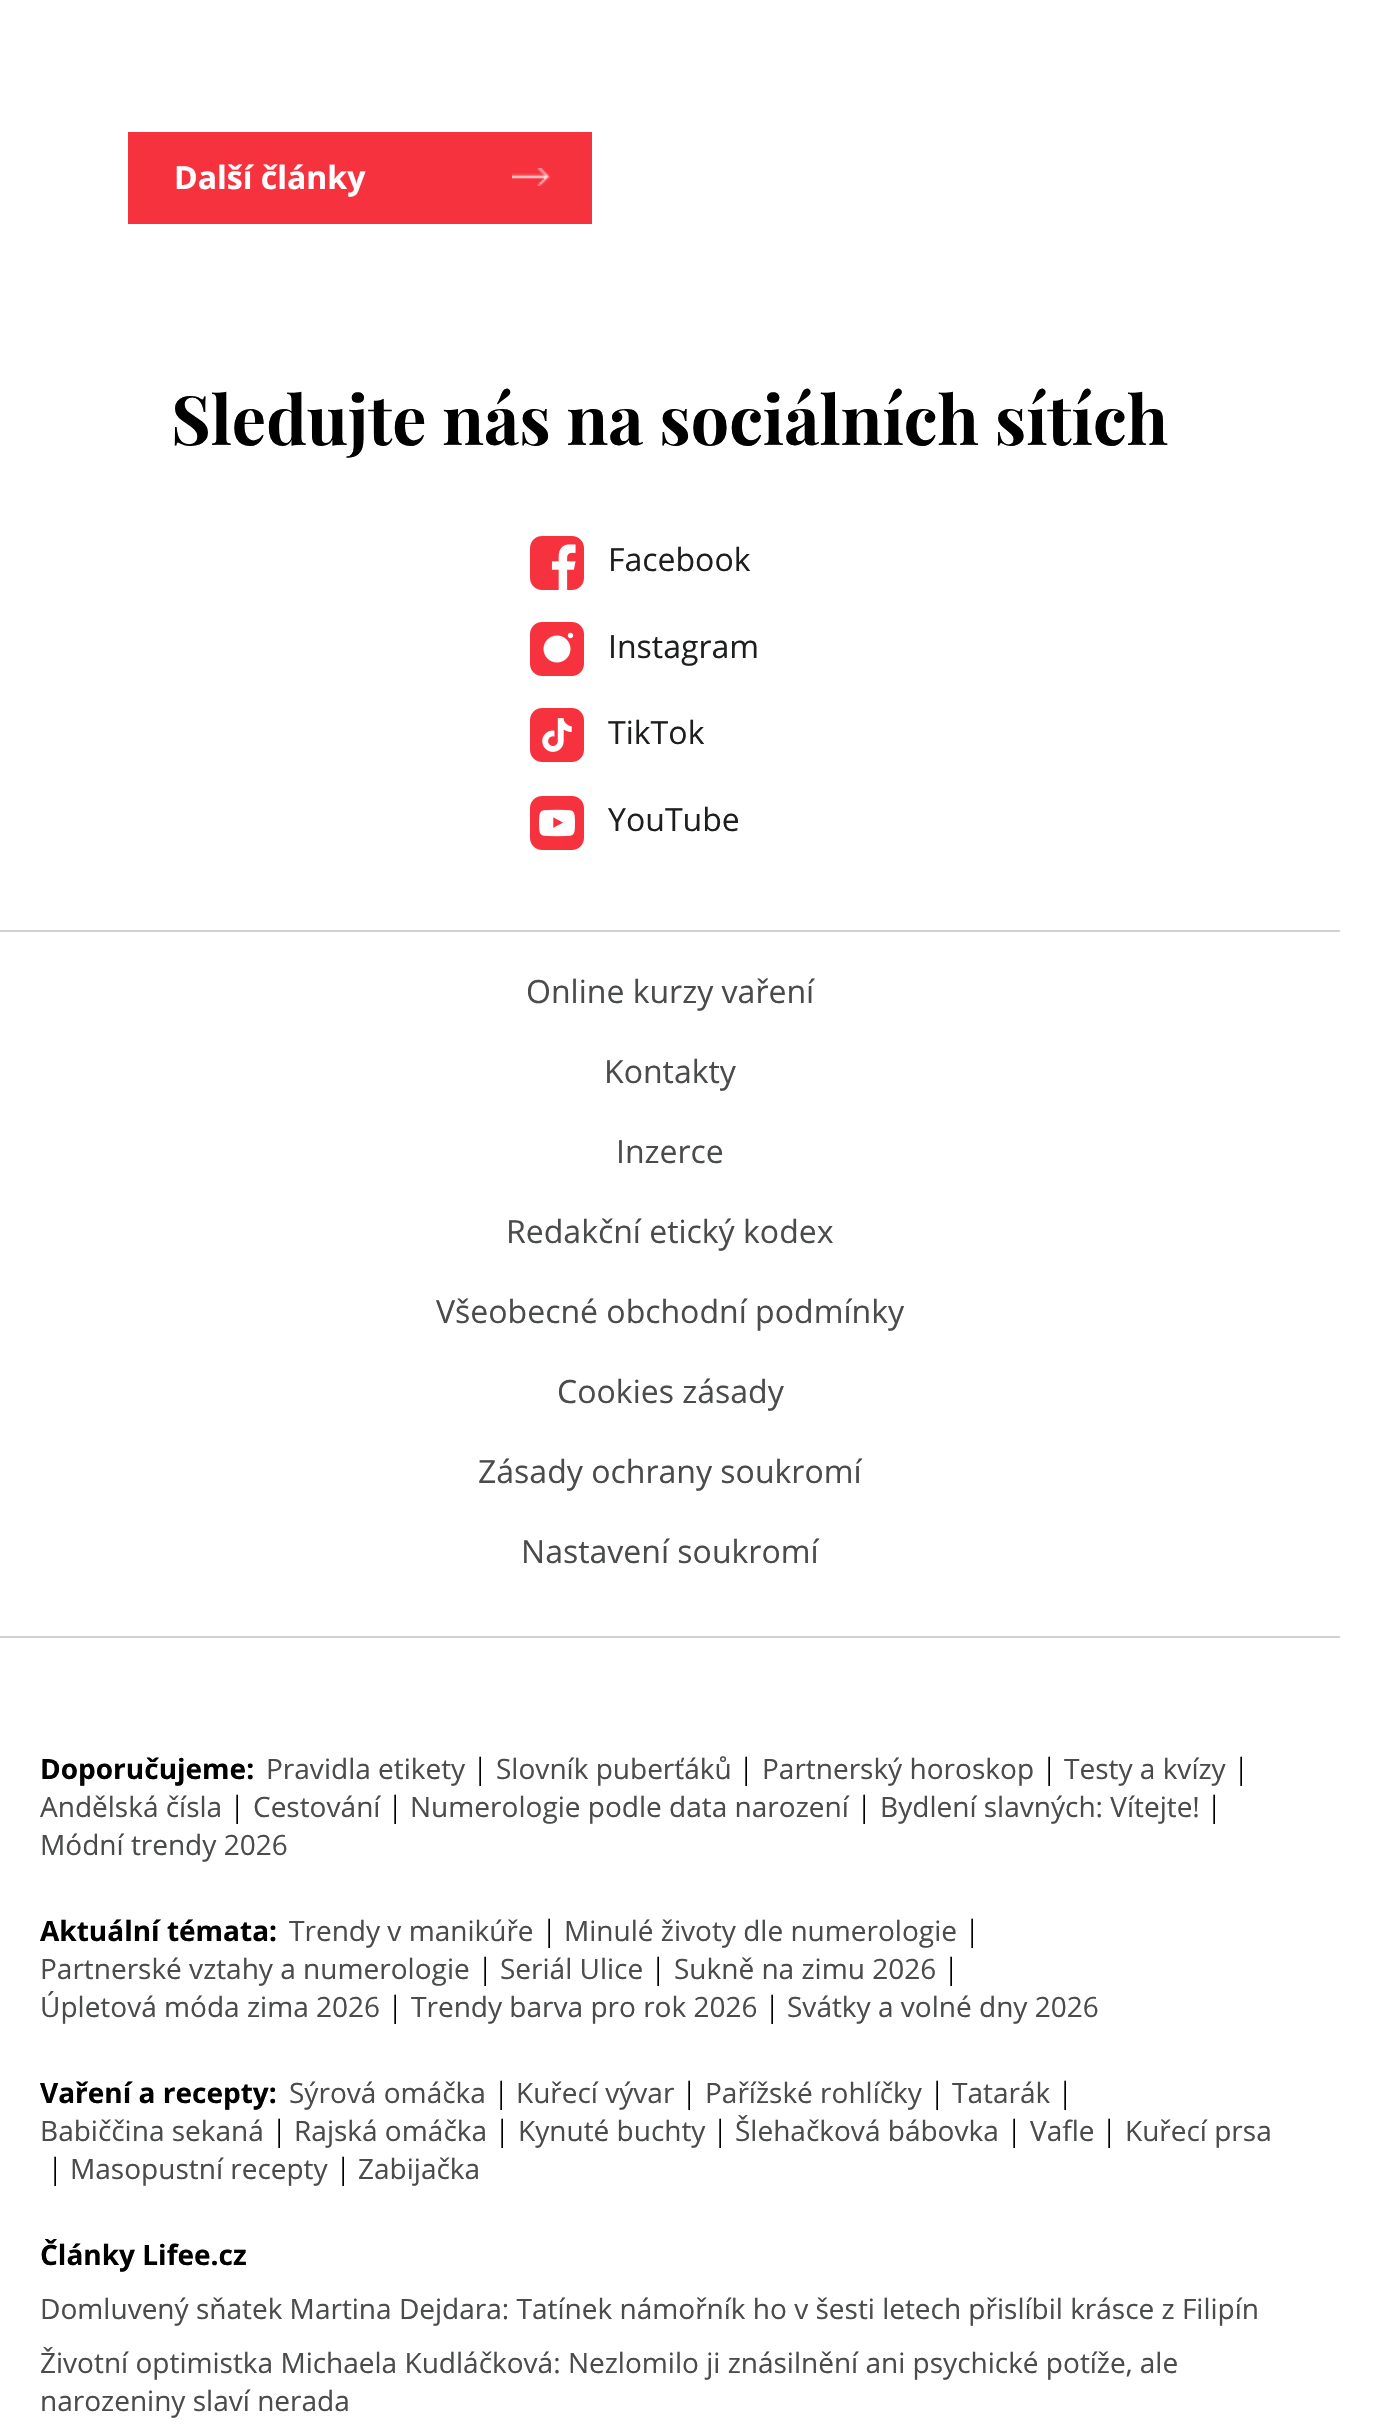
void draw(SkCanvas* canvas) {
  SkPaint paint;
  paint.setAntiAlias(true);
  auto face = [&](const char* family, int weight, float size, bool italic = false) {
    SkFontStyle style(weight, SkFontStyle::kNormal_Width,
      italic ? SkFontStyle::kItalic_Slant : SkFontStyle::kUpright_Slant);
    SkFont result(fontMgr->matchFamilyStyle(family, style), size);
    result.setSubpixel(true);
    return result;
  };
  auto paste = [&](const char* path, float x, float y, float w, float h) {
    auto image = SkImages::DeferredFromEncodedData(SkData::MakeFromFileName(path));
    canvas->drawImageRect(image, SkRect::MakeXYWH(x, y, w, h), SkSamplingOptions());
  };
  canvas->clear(0xffffffff);
  paint.setColor(0xfff7323f);
  canvas->drawRect(SkRect::MakeXYWH(128, 132, 464, 92), paint);
  paste("img/1.png", 512, 168, 38, 18);
  paste("img/2.png", 530, 536, 54, 54);
  paste("img/3.png", 530, 622, 54, 54);
  paste("img/4.png", 530, 708, 54, 54);
  paste("img/5.png", 530, 796, 54, 54);
  paint.setColor(0xffd2d2d2);
  canvas->drawRect(SkRect::MakeXYWH(0, 930, 1340, 2), paint);
  canvas->drawRect(SkRect::MakeXYWH(0, 1636, 1340, 2), paint);
  auto f0 = face("Open Sans", 700, 32);
  paint.setColor(0xffffffff);
  canvas->drawString("Další články", 174, 189, f0, paint);
  auto f1 = face("Playfair Display", 700, 68);
  paint.setColor(0xff000000);
  canvas->drawString("Sledujte nás na sociálních sítích", 171, 445, f1, paint);
  auto f2 = face("Open Sans", 400, 32);
  paint.setColor(0xff1d1e1e);
  {
    const struct { const char* s; float x, y; } items[] = {
      {"Facebook", 608, 571},
      {"Instagram", 608, 658},
      {"TikTok", 608, 744},
      {"YouTube", 608, 831},
    };
    for (auto [s, x, y] : items) {
      canvas->drawString(s, x, y, f2, paint);
    }
  }
  paint.setColor(0xff4a4b4b);
  {
    const struct { const char* s; float x, y; } items[] = {
      {"Online kurzy vaření", 526, 1003},
      {"Kontakty", 604, 1083},
      {"Inzerce", 616, 1163},
      {"Redakční etický kodex", 506, 1243},
      {"Všeobecné obchodní podmínky", 436, 1323},
      {"Cookies zásady", 557, 1403},
      {"Zásady ochrany soukromí", 478, 1483},
      {"Nastavení soukromí", 521, 1563},
    };
    for (auto [s, x, y] : items) {
      canvas->drawString(s, x, y, f2, paint);
    }
  }
  auto f3 = face("Open Sans", 700, 28);
  paint.setColor(0xff000000);
  canvas->drawString("Doporučujeme:", 40, 1779, f3, paint);
  auto f4 = face("Open Sans", 400, 28);
  paint.setColor(0xff4a4b4b);
  canvas->drawString("Pravidla etikety", 266, 1779, f4, paint);
  auto f5 = face("Liberation Serif", 400, 32);
  paint.setColor(0xff000000);
  canvas->drawString("|", 477, 1779, f5, paint);
  paint.setColor(0xff4a4b4b);
  canvas->drawString("Slovník puberťáků", 496, 1779, f4, paint);
  paint.setColor(0xff000000);
  canvas->drawString("|", 743, 1779, f5, paint);
  paint.setColor(0xff4a4b4b);
  canvas->drawString("Partnerský horoskop", 762, 1779, f4, paint);
  paint.setColor(0xff000000);
  canvas->drawString("|", 1046, 1779, f5, paint);
  paint.setColor(0xff4a4b4b);
  canvas->drawString("Testy a kvízy", 1064, 1779, f4, paint);
  paint.setColor(0xff000000);
  canvas->drawString("|", 1238, 1779, f5, paint);
  paint.setColor(0xff4a4b4b);
  canvas->drawString("Andělská čísla", 40, 1817, f4, paint);
  paint.setColor(0xff000000);
  canvas->drawString("|", 234, 1817, f5, paint);
  paint.setColor(0xff4a4b4b);
  canvas->drawString("Cestování", 253, 1817, f4, paint);
  paint.setColor(0xff000000);
  canvas->drawString("|", 392, 1817, f5, paint);
  paint.setColor(0xff4a4b4b);
  canvas->drawString("Numerologie podle data narození", 410, 1817, f4, paint);
  paint.setColor(0xff000000);
  canvas->drawString("|", 861, 1817, f5, paint);
  paint.setColor(0xff4a4b4b);
  canvas->drawString("Bydlení slavných: Vítejte!", 880, 1817, f4, paint);
  paint.setColor(0xff000000);
  canvas->drawString("|", 1211, 1817, f5, paint);
  paint.setColor(0xff4a4b4b);
  canvas->drawString("Módní trendy 2026", 40, 1855, f4, paint);
  paint.setColor(0xff000000);
  canvas->drawString("Aktuální témata:", 40, 1941, f3, paint);
  paint.setColor(0xff4a4b4b);
  canvas->drawString("Trendy v manikúře", 289, 1941, f4, paint);
  paint.setColor(0xff000000);
  canvas->drawString("|", 546, 1941, f5, paint);
  paint.setColor(0xff4a4b4b);
  canvas->drawString("Minulé životy dle numerologie", 564, 1941, f4, paint);
  paint.setColor(0xff000000);
  canvas->drawString("|", 969, 1941, f5, paint);
  paint.setColor(0xff4a4b4b);
  canvas->drawString("Partnerské vztahy a numerologie", 40, 1979, f4, paint);
  paint.setColor(0xff000000);
  canvas->drawString("|", 482, 1979, f5, paint);
  paint.setColor(0xff4a4b4b);
  canvas->drawString("Seriál Ulice", 500, 1979, f4, paint);
  paint.setColor(0xff000000);
  canvas->drawString("|", 655, 1979, f5, paint);
  paint.setColor(0xff4a4b4b);
  canvas->drawString("Sukně na zimu 2026", 674, 1979, f4, paint);
  paint.setColor(0xff000000);
  canvas->drawString("|", 948, 1979, f5, paint);
  paint.setColor(0xff4a4b4b);
  canvas->drawString("Úpletová móda zima 2026", 40, 2017, f4, paint);
  paint.setColor(0xff000000);
  canvas->drawString("|", 392, 2017, f5, paint);
  paint.setColor(0xff4a4b4b);
  canvas->drawString("Trendy barva pro rok 2026", 411, 2017, f4, paint);
  paint.setColor(0xff000000);
  canvas->drawString("|", 769, 2017, f5, paint);
  paint.setColor(0xff4a4b4b);
  canvas->drawString("Svátky a volné dny 2026", 787, 2017, f4, paint);
  paint.setColor(0xff000000);
  canvas->drawString("Vaření a recepty:", 40, 2103, f3, paint);
  paint.setColor(0xff4a4b4b);
  canvas->drawString("Sýrová omáčka", 289, 2103, f4, paint);
  paint.setColor(0xff000000);
  canvas->drawString("|", 498, 2103, f5, paint);
  paint.setColor(0xff4a4b4b);
  canvas->drawString("Kuřecí vývar", 516, 2103, f4, paint);
  paint.setColor(0xff000000);
  canvas->drawString("|", 686, 2103, f5, paint);
  paint.setColor(0xff4a4b4b);
  canvas->drawString("Pařížské rohlíčky", 705, 2103, f4, paint);
  paint.setColor(0xff000000);
  canvas->drawString("|", 934, 2103, f5, paint);
  paint.setColor(0xff4a4b4b);
  canvas->drawString("Tatarák", 952, 2103, f4, paint);
  paint.setColor(0xff000000);
  canvas->drawString("|", 1062, 2103, f5, paint);
  paint.setColor(0xff4a4b4b);
  canvas->drawString("Babiččina sekaná", 40, 2141, f4, paint);
  paint.setColor(0xff000000);
  canvas->drawString("|", 276, 2141, f5, paint);
  paint.setColor(0xff4a4b4b);
  canvas->drawString("Rajská omáčka", 294, 2141, f4, paint);
  paint.setColor(0xff000000);
  canvas->drawString("|", 499, 2141, f5, paint);
  paint.setColor(0xff4a4b4b);
  canvas->drawString("Kynuté buchty", 518, 2141, f4, paint);
  paint.setColor(0xff000000);
  canvas->drawString("|", 717, 2141, f5, paint);
  paint.setColor(0xff4a4b4b);
  canvas->drawString("Šlehačková bábovka", 735, 2141, f4, paint);
  paint.setColor(0xff000000);
  canvas->drawString("|", 1011, 2141, f5, paint);
  paint.setColor(0xff4a4b4b);
  canvas->drawString("Vafle", 1030, 2141, f4, paint);
  paint.setColor(0xff000000);
  canvas->drawString("|", 1106, 2141, f5, paint);
  paint.setColor(0xff4a4b4b);
  canvas->drawString("Kuřecí prsa", 1125, 2141, f4, paint);
  paint.setColor(0xff000000);
  canvas->drawString("|", 52, 2179, f5, paint);
  paint.setColor(0xff4a4b4b);
  canvas->drawString("Masopustní recepty", 70, 2179, f4, paint);
  paint.setColor(0xff000000);
  canvas->drawString("|", 340, 2179, f5, paint);
  paint.setColor(0xff4a4b4b);
  canvas->drawString("Zabijačka", 358, 2179, f4, paint);
  paint.setColor(0xff000000);
  canvas->drawString("Články Lifee.cz", 40, 2265, f3, paint);
  paint.setColor(0xff4a4b4b);
  {
    const struct { const char* s; float x, y; } items[] = {
      {"Domluvený sňatek Martina Dejdara: Tatínek námořník ho v šesti letech přislíbil krásce z Filipín", 40, 2319},
      {"Životní optimistka Michaela Kudláčková: Nezlomilo ji znásilnění ani psychické potíže, ale", 40, 2373},
      {"narozeniny slaví nerada", 40, 2411},
    };
    for (auto [s, x, y] : items) {
      canvas->drawString(s, x, y, f4, paint);
    }
  }
}
